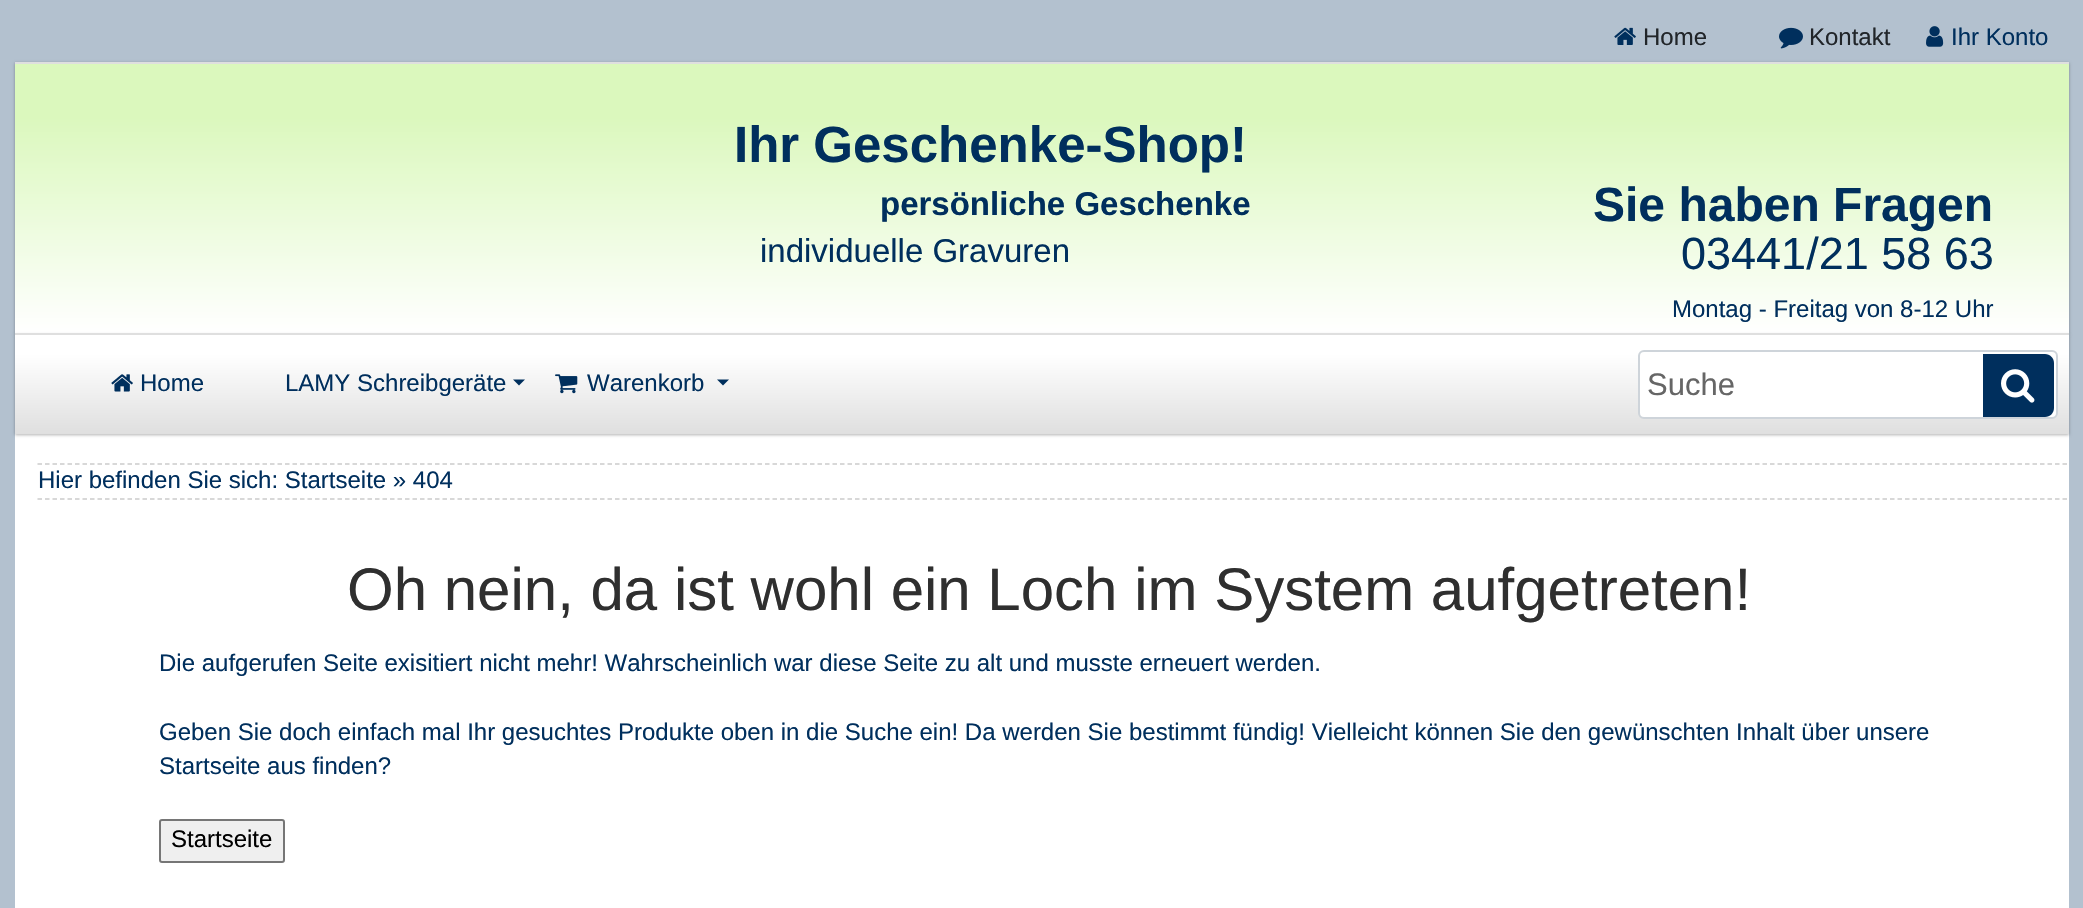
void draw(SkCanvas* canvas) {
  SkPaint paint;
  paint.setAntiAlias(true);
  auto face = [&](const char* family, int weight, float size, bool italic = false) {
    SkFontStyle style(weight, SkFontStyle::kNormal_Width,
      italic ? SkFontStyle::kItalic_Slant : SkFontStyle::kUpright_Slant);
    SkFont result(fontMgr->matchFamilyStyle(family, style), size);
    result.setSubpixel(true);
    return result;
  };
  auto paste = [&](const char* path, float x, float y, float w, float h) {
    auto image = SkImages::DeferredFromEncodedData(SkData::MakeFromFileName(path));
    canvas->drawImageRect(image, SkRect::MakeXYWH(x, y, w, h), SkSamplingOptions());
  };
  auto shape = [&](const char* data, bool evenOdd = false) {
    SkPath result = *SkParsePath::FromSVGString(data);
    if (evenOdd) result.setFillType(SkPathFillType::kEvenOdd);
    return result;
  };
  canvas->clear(0xffb3c1cf);
  paste("img/1.png", 1614, 27, 22, 18);
  paste("img/2.png", 1779, 27, 24, 22);
  paste("img/3.png", 1926, 26, 18, 21);
  paint.setColor(0xffffffff);
  canvas->drawRect(SkRect::MakeXYWH(15, 434, 2054, 474), paint);
  paint.setColor(0x4d000000);
  paint.setMaskFilter(SkMaskFilter::MakeBlur(kNormal_SkBlurStyle, 1.5f));
  canvas->drawRect(SkRect::MakeXYWH(15, 63, 2054, 272), paint);
  paint.setMaskFilter(nullptr);
  {
    const SkColor colors[] = {0xffdbf8bd, 0xffffffff};
    const float stops[] = {0.2f, 1};
    const SkPoint ends[] = {{1042, 63}, {1042, 333}};
    paint.setShader(SkGradientShader::MakeLinear(ends, colors, stops, 2, SkTileMode::kClamp));
    paint.setAlpha(255);
  }
  canvas->drawRect(SkRect::MakeXYWH(15, 64, 2054, 269), paint);
  paint.setShader(nullptr);
  paint.setColor(0xffdfdfdf);
  canvas->drawRect(SkRect::MakeXYWH(15, 62, 2054, 2), paint);
  paint.setColor(0x4d000000);
  paint.setMaskFilter(SkMaskFilter::MakeBlur(kNormal_SkBlurStyle, 1.5f));
  canvas->drawRect(SkRect::MakeXYWH(15, 335, 2054, 100), paint);
  paint.setMaskFilter(nullptr);
  {
    const SkColor colors[] = {0xffffffff, 0xffdfdfdf};
    const float stops[] = {0.2f, 1};
    const SkPoint ends[] = {{1042, 334}, {1042, 434}};
    paint.setShader(SkGradientShader::MakeLinear(ends, colors, stops, 2, SkTileMode::kClamp));
    paint.setAlpha(255);
  }
  canvas->drawRect(SkRect::MakeXYWH(15, 335, 2054, 99), paint);
  paint.setShader(nullptr);
  paint.setColor(0xffdfdfdf);
  canvas->drawRect(SkRect::MakeXYWH(15, 333, 2054, 2), paint);
  paste("img/4.png", 111, 374, 22, 18);
  paint.setColor(0xff002f5d);
  canvas->drawPath(shape("M513 379.5H525L519 385.5Z"), paint);
  paste("img/5.png", 555, 374, 23, 20);
  canvas->drawPath(shape("M717 379.5H729L723 385.5Z"), paint);
  paint.setColor(0xffffffff);
  canvas->drawRoundRect(SkRect::MakeXYWH(1639, 351, 418, 67), 5, 5, paint);
  paint.setStroke(true);
  paint.setStrokeWidth(2);
  paint.setColor(0xffced4da);
  canvas->drawRoundRect(SkRect::MakeXYWH(1639, 351, 418, 67), 5, 5, paint);
  paint.setStroke(false);
  paint.setColor(0xff002f5d);
  canvas->drawPath(shape("M1983 354H2045C2050 354 2054 358 2054 363V408C2054 413 2050 417 2045 417H1983Z"), paint);
  paste("img/6.png", 2001, 369, 34, 34);
  paint.setStroke(true);
  paint.setStrokeWidth(1.5f);
  paint.setColor(0xffcccccc);
  paint.setPathEffect(SkDashPathEffect::Make({{4.5f, 3}}, 0));
  canvas->drawPath(shape("M37.5 464H2068.5"), paint);
  paint.setPathEffect(nullptr);
  paint.setPathEffect(SkDashPathEffect::Make({{4.5f, 3}}, 0));
  canvas->drawPath(shape("M37.5 499H2068.5"), paint);
  paint.setPathEffect(nullptr);
  paint.setStroke(false);
  paint.setColor(0xffefefef);
  canvas->drawRoundRect(SkRect::MakeXYWH(160, 820, 124, 42), 2, 2, paint);
  paint.setStroke(true);
  paint.setStrokeWidth(2);
  paint.setColor(0xff767676);
  canvas->drawRoundRect(SkRect::MakeXYWH(160, 820, 124, 42), 2, 2, paint);
  auto f0 = face("Liberation Sans", 400, 24);
  paint.setStroke(false);
  paint.setColor(0xff212529);
  canvas->drawString("Home", 1643, 45, f0, paint);
  canvas->drawString("Kontakt", 1809, 45, f0, paint);
  paint.setColor(0xff002f5d);
  canvas->drawString("Ihr Konto", 1951, 45, f0, paint);
  auto f1 = face("Liberation Sans", 700, 51);
  canvas->drawString("Ihr Geschenke-Shop!", 734, 162, f1, paint);
  auto f2 = face("Liberation Sans", 700, 33);
  canvas->drawString("persönliche Geschenke", 880, 215, f2, paint);
  auto f3 = face("Liberation Sans", 400, 33);
  canvas->drawString("individuelle Gravuren", 760, 262, f3, paint);
  auto f4 = face("Liberation Sans", 700, 48);
  canvas->drawString("Sie haben Fragen", 1593, 221, f4, paint);
  auto f5 = face("Liberation Sans", 400, 45);
  canvas->drawString("03441/21 58 63", 1681, 269, f5, paint);
  {
    const struct { const char* s; float x, y; } items[] = {
      {"Montag - Freitag von 8-12 Uhr", 1672, 317},
      {"Home", 140, 391},
      {"LAMY Schreibgeräte", 285, 391},
      {"Warenkorb", 587, 391},
    };
    for (auto [s, x, y] : items) {
      canvas->drawString(s, x, y, f0, paint);
    }
  }
  auto f6 = face("Liberation Sans", 400, 31);
  paint.setColor(0xff666666);
  canvas->drawString("Suche", 1647, 395, f6, paint);
  paint.setColor(0xff002f5d);
  canvas->drawString("Hier befinden Sie sich: Startseite » 404", 38, 488, f0, paint);
  auto f7 = face("Liberation Sans", 400, 60);
  paint.setColor(0xff2f2f2f);
  canvas->drawString("Oh nein, da ist wohl ein Loch im System aufgetreten!", 347, 610, f7, paint);
  paint.setColor(0xff002f5d);
  {
    const struct { const char* s; float x, y; } items[] = {
      {"Die aufgerufen Seite exisitiert nicht mehr! Wahrscheinlich war diese Seite zu alt und musste erneuert werden.", 159, 671},
      {"Geben Sie doch einfach mal Ihr gesuchtes Produkte oben in die Suche ein! Da werden Sie bestimmt fündig! Vielleicht können Sie den gewünschten Inhalt über unsere", 159, 740},
      {"Startseite aus finden?", 159, 774},
    };
    for (auto [s, x, y] : items) {
      canvas->drawString(s, x, y, f0, paint);
    }
  }
  paint.setColor(0xff000000);
  canvas->drawString("Startseite", 171, 847, f0, paint);
}
